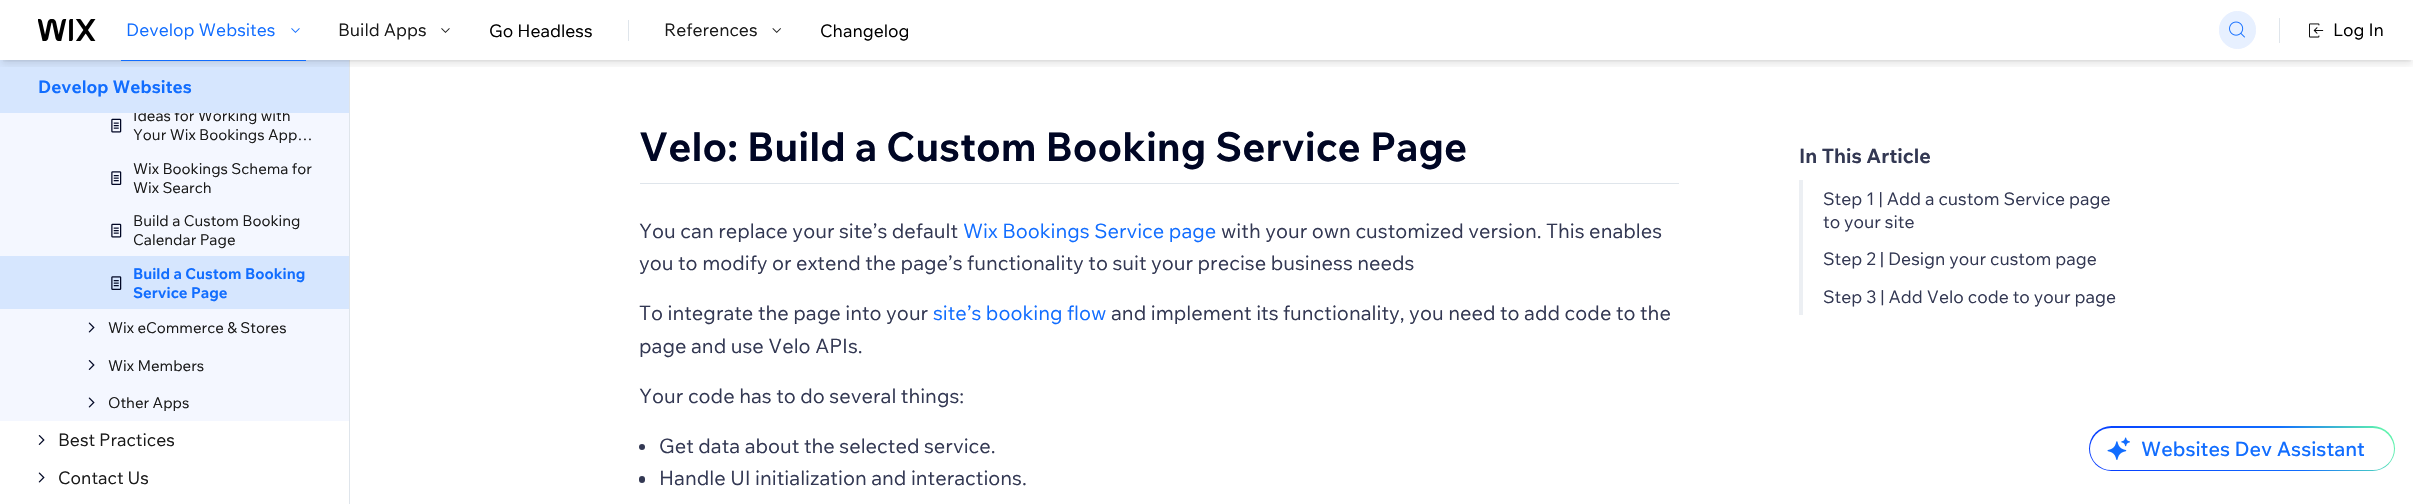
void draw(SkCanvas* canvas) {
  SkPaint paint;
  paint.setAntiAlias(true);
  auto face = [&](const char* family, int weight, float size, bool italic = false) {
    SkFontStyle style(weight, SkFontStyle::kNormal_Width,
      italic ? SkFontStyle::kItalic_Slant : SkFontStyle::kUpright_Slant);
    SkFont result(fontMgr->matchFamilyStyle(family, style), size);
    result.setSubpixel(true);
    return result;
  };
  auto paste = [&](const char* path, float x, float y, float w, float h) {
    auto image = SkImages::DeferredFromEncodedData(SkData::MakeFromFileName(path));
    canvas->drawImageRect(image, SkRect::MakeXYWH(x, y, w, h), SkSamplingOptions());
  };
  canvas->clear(0xffffffff);
  paint.setColor(0xffdfe5eb);
  canvas->drawRect(SkRect::MakeXYWH(349, 60, 1, 444), paint);
  paint.setColor(0xfff4f7ff);
  canvas->drawRect(SkRect::MakeXYWH(0, 113, 349, 143), paint);
  paste("img/7.png", 111, 118, 11, 15);
  paste("img/8.png", 111, 171, 11, 14);
  paste("img/7.png", 111, 223, 11, 15);
  paint.setColor(0xffd6e6fe);
  canvas->drawRect(SkRect::MakeXYWH(0, 256, 349, 53), paint);
  paste("img/9.png", 111, 276, 11, 14);
  paint.setColor(0xfff4f7ff);
  canvas->drawRect(SkRect::MakeXYWH(0, 309, 349, 112), paint);
  paste("img/10.png", 88, 322, 7, 11);
  paste("img/11.png", 88, 360, 7, 10);
  paste("img/10.png", 88, 397, 7, 11);
  paste("img/12.png", 38, 435, 7, 10);
  paste("img/13.png", 38, 472, 7, 11);
  paint.setColor(0xffdfe5eb);
  canvas->drawRect(SkRect::MakeXYWH(640, 183, 1039, 1), paint);
  paint.setColor(0xffeceff3);
  canvas->drawRect(SkRect::MakeXYWH(1799, 180, 4, 135), paint);
  paint.setColor(0xff333853);
  canvas->drawCircle(642, 447, 3, paint);
  canvas->drawRoundRect(SkRect::MakeXYWH(639, 476, 6, 7), 3, 3, paint);
  {
    const SkColor colors[] = {0xff0021ff, 0xff116dff, 0xff5ff2ae};
    const float stops[] = {0, 0.73f, 0.97f};
    const SkPoint ends[] = {{2040, 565}, {2366, 377}};
    paint.setShader(SkGradientShader::MakeLinear(ends, colors, stops, 3, SkTileMode::kClamp));
    paint.setAlpha(255);
  }
  canvas->drawRoundRect(SkRect::MakeXYWH(2089, 426, 306, 45), 22.5f, 22.5f, paint);
  paint.setShader(nullptr);
  paint.setColor(0xffffffff);
  canvas->drawRoundRect(SkRect::MakeXYWH(2090, 428, 304, 42), 21, 21, paint);
  paste("img/14.png", 2107, 437, 23, 23);
  auto f0 = face("Wix Madefor Text", 400, 15);
  paint.setColor(0xff1a1a1a);
  canvas->drawString("Ideas for Working with", 133, 121, f0, paint);
  paint.setColor(0xffd6e6fe);
  canvas->drawRect(SkRect::MakeXYWH(0, 60, 349, 53), paint);
  canvas->save();
  canvas->clipRect(SkRect::MakeXYWH(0, 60, 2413, 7));
  paint.setColor(0x1a000000);
  paint.setMaskFilter(SkMaskFilter::MakeBlur(kNormal_SkBlurStyle, 4));
  canvas->drawRect(SkRect::MakeXYWH(1, 6, 2412, 58), paint);
  paint.setMaskFilter(nullptr);
  canvas->restore();
  canvas->save();
  canvas->clipRect(SkRect::MakeXYWH(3, 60, 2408, 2));
  paint.setMaskFilter(SkMaskFilter::MakeBlur(kNormal_SkBlurStyle, 2.5f));
  canvas->drawRect(SkRect::MakeXYWH(3, 5, 2408, 55), paint);
  paint.setMaskFilter(nullptr);
  canvas->restore();
  paste("img/4.png", 772, 28, 9, 5);
  auto f1 = face("Wix Madefor Text", 400, 17.5f);
  paint.setColor(0xff1a1a1a);
  canvas->drawString("References", 664, 36, f1, paint);
  paste("img/3.png", 441, 28, 9, 5);
  canvas->drawString("Build Apps", 338, 36, f1, paint);
  paste("img/2.png", 291, 28, 9, 5);
  paint.setColor(0xff116dff);
  canvas->drawString("Develop Websites", 126, 36, f1, paint);
  canvas->drawRect(SkRect::MakeXYWH(121, 60, 185, 1), paint);
  paste("img/6.png", 2309, 23, 15, 15);
  paint.setColor(0xffdfe5eb);
  canvas->drawRect(SkRect::MakeXYWH(2279, 18, 1, 25), paint);
  paint.setColor(0xffe7f0ff);
  canvas->drawRoundRect(SkRect::MakeXYWH(2219.5f, 11.5f, 36, 37), 18, 18, paint);
  paint.setStroke(true);
  paint.setStrokeWidth(1);
  canvas->drawRoundRect(SkRect::MakeXYWH(2219.5f, 11.5f, 36, 37), 18, 18, paint);
  paste("img/5.png", 2229, 21, 16, 17);
  paint.setStroke(false);
  paint.setColor(0xffdfe5eb);
  canvas->drawRect(SkRect::MakeXYWH(628, 20, 1, 21), paint);
  paste("img/1.png", 38, 19, 58, 22);
  auto f2 = face("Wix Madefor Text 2", 400, 17.5f);
  paint.setColor(0xff000000);
  {
    const struct { const char* s; float x, y; } items[] = {
      {"Log In", 2333, 36},
      {"Changelog", 820, 37},
      {"Go Headless", 489, 37},
    };
    for (auto [s, x, y] : items) {
      canvas->drawString(s, x, y, f2, paint);
    }
  }
  auto f3 = face("Wix Madefor Text", 700, 17.5f);
  paint.setColor(0xff116dff);
  canvas->drawString("Develop Websites", 38, 93, f3, paint);
  paint.setColor(0xff1a1a1a);
  {
    const struct { const char* s; float x, y; } items[] = {
      {"Your Wix Bookings App…", 133, 140},
      {"Wix Bookings Schema for", 133, 174},
      {"Wix Search", 133, 193},
      {"Build a Custom Booking", 133, 226},
      {"Calendar Page", 133, 245},
    };
    for (auto [s, x, y] : items) {
      canvas->drawString(s, x, y, f0, paint);
    }
  }
  auto f4 = face("Wix Madefor Text", 700, 15);
  paint.setColor(0xff116dff);
  canvas->drawString("Build a Custom Booking", 133, 279, f4, paint);
  canvas->drawString("Service Page", 133, 298, f4, paint);
  paint.setColor(0xff1a1a1a);
  {
    const struct { const char* s; float x, y; } items[] = {
      {"Wix eCommerce & Stores", 108, 333},
      {"Wix Members", 108, 371},
      {"Other Apps", 108, 408},
    };
    for (auto [s, x, y] : items) {
      canvas->drawString(s, x, y, f0, paint);
    }
  }
  canvas->drawString("Best Practices", 58, 446, f1, paint);
  canvas->drawString("Contact Us", 58, 484, f1, paint);
  auto f5 = face("Wix Madefor Text 2", 700, 40);
  paint.setColor(0xff000624);
  canvas->drawString("Velo: Build a Custom Booking Service Page", 639, 161, f5, paint);
  auto f6 = face("Wix Madefor Text 2", 700, 20);
  paint.setColor(0xff333853);
  canvas->drawString("In This Article", 1799, 163, f6, paint);
  {
    const struct { const char* s; float x, y; } items[] = {
      {"Step 1 | Add a custom Service page", 1823, 205},
      {"to your site", 1823, 228},
      {"Step 2 | Design your custom page", 1823, 265},
      {"Step 3 | Add Velo code to your page", 1823, 303},
    };
    for (auto [s, x, y] : items) {
      canvas->drawString(s, x, y, f2, paint);
    }
  }
  auto f7 = face("Wix Madefor Text 2", 400, 20);
  canvas->drawString("You can replace your site’s default", 639, 238, f7, paint);
  paint.setColor(0xff116dff);
  canvas->drawString("Wix Bookings Service page", 963, 238, f7, paint);
  paint.setColor(0xff333853);
  {
    const struct { const char* s; float x, y; } items[] = {
      {"with your own customized version. This enables", 1221, 238},
      {"you to modify or extend the page’s functionality to suit your precise business needs", 639, 270},
      {"To integrate the page into your", 639, 320},
    };
    for (auto [s, x, y] : items) {
      canvas->drawString(s, x, y, f7, paint);
    }
  }
  paint.setColor(0xff116dff);
  canvas->drawString("site’s booking flow", 933, 320, f7, paint);
  paint.setColor(0xff333853);
  {
    const struct { const char* s; float x, y; } items[] = {
      {"and implement its functionality, you need to add code to the", 1111, 320},
      {"page and use Velo APIs.", 639, 353},
      {"Your code has to do several things:", 639, 403},
      {"Get data about the selected service.", 659, 453},
      {"Handle UI initialization and interactions.", 659, 485},
    };
    for (auto [s, x, y] : items) {
      canvas->drawString(s, x, y, f7, paint);
    }
  }
  auto f8 = face("Wix Madefor Text", 500, 20);
  paint.setColor(0xff116dff);
  canvas->drawString("Websites Dev Assistant", 2141, 456, f8, paint);
}
